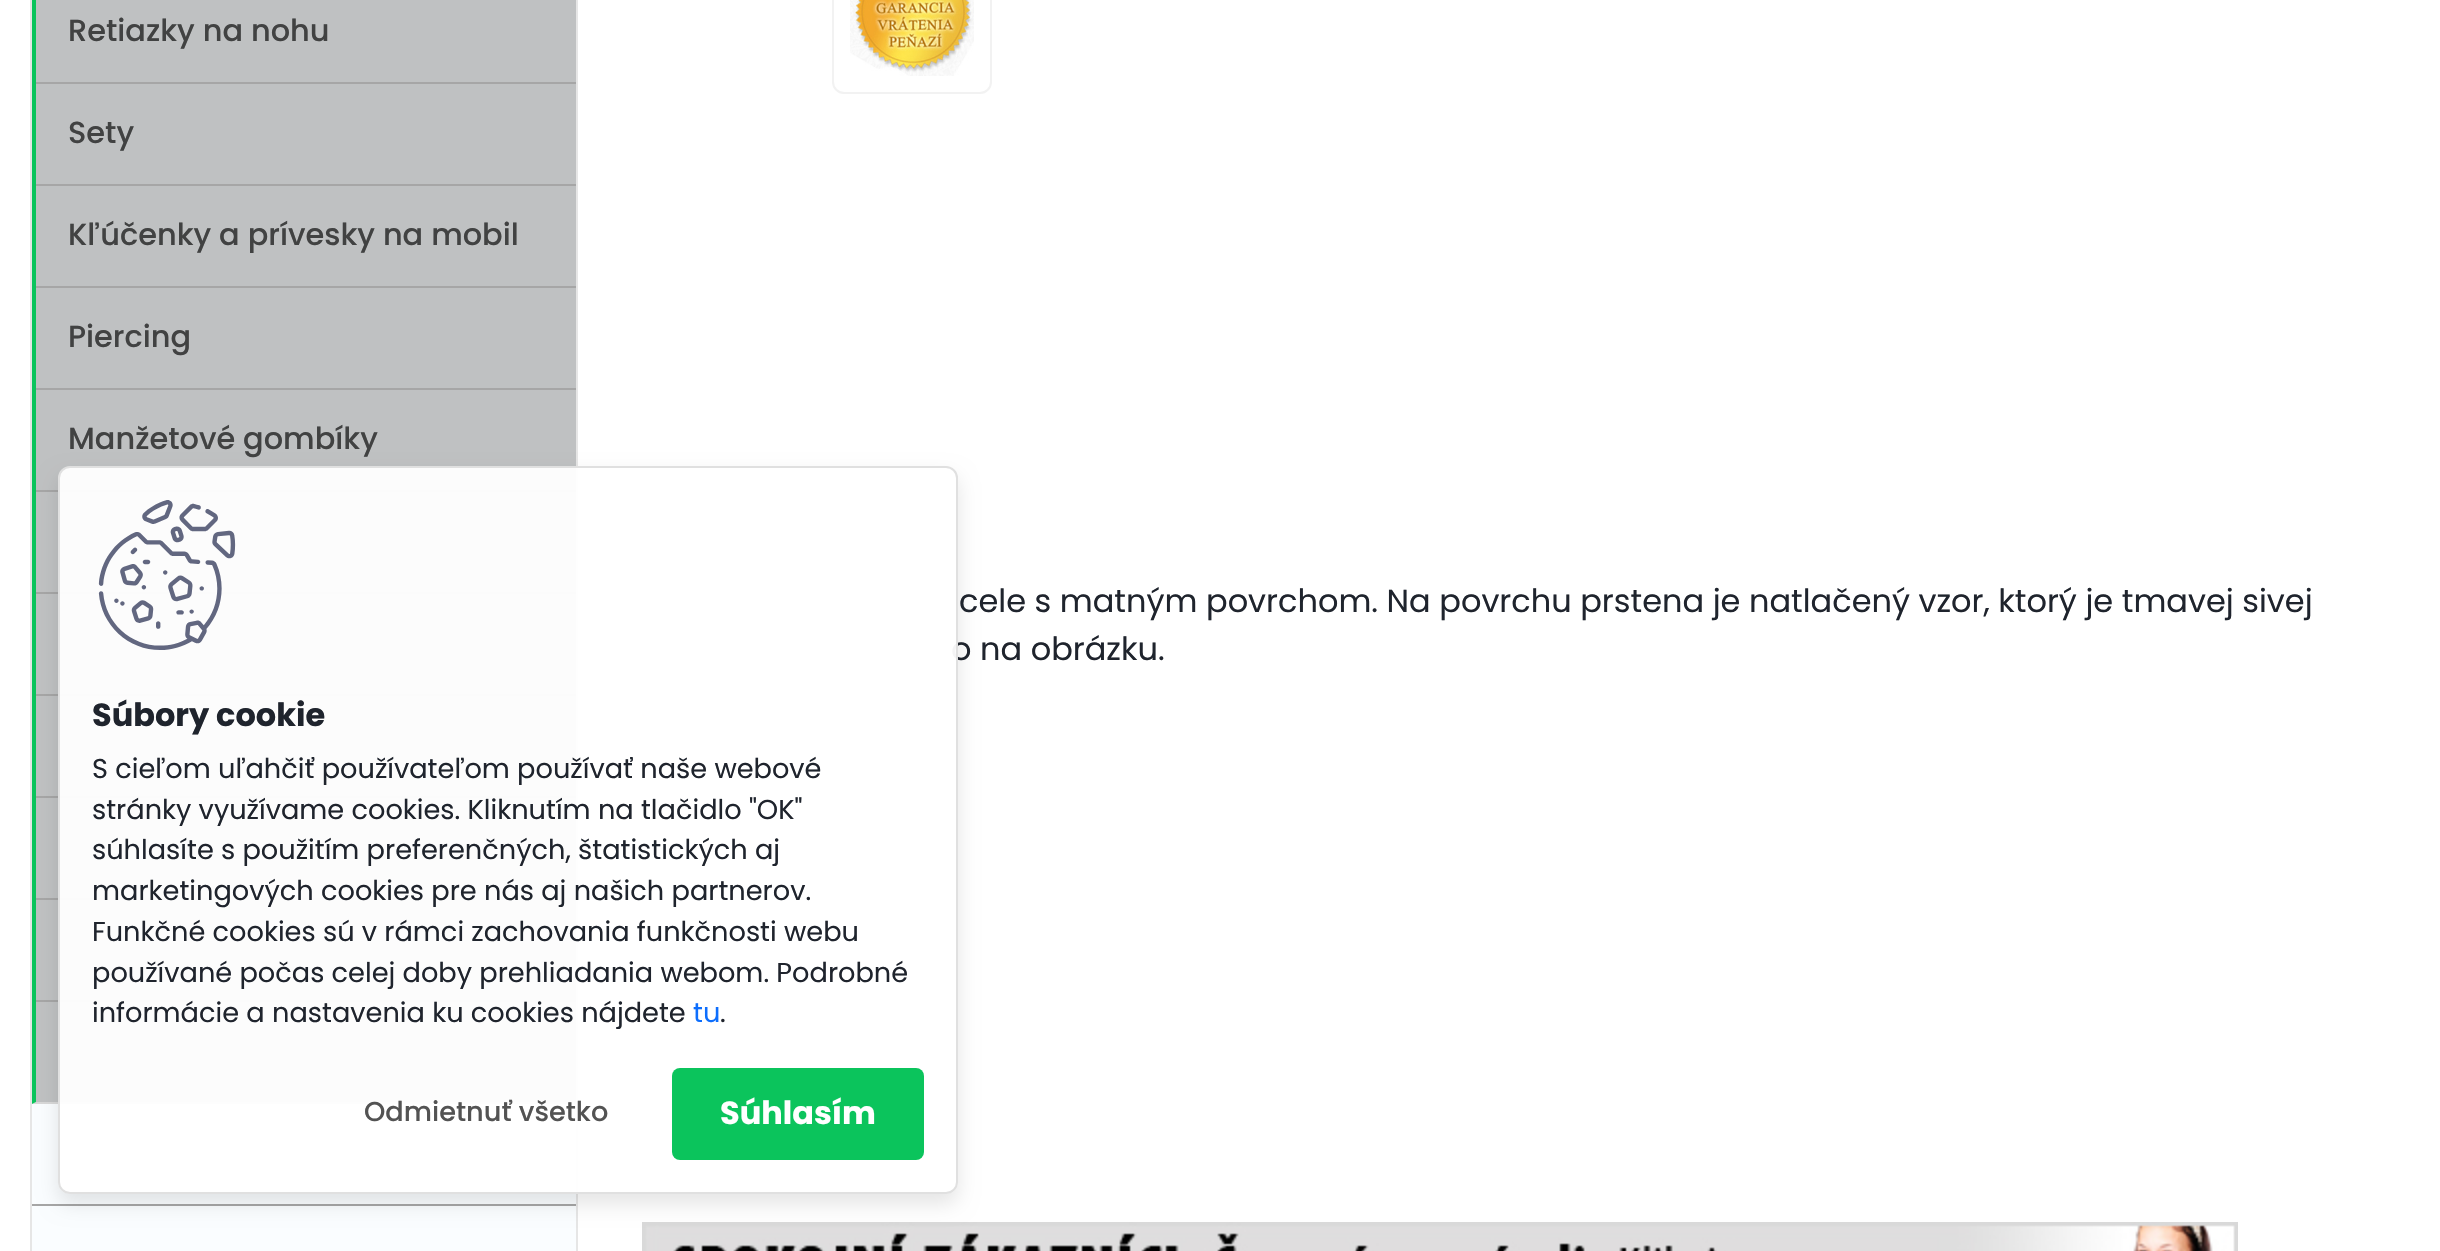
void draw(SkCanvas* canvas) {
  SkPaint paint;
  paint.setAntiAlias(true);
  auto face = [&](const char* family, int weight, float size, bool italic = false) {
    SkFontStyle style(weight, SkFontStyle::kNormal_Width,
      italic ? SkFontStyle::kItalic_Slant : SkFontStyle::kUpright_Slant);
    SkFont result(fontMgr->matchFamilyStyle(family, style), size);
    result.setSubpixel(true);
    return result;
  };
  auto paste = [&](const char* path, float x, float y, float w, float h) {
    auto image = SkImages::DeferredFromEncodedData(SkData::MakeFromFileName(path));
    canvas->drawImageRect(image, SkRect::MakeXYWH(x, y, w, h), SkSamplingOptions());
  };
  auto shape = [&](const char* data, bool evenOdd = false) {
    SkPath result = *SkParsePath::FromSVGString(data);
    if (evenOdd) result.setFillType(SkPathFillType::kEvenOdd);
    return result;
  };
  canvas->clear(0xffffffff);
  paint.setStroke(true);
  paint.setStrokeWidth(2);
  paint.setColor(0xffe6e6e6);
  canvas->drawRect(SkRect::MakeXYWH(31, -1, 546, 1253), paint);
  paint.setStroke(false);
  paint.setColor(0xffd8d8d8);
  canvas->drawPath(shape("M576 1104H32L36 1102H576Z"), paint);
  paint.setColor(0xff0bc45c);
  canvas->drawPath(shape("M32 1104V-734H36V1102Z"), paint);
  {
    const struct { float x, y, w, h; SkColor color; } items[] = {
      {36, 0, 540, 82, 0xffbfc1c2},
      {36, 82, 540, 2, 0xffa6a6a6},
      {36, 84, 540, 100, 0xffbfc1c2},
      {36, 184, 540, 2, 0xffa6a6a6},
      {36, 186, 540, 100, 0xffbfc1c2},
      {36, 286, 540, 2, 0xffa6a6a6},
      {36, 288, 540, 100, 0xffbfc1c2},
      {36, 388, 540, 2, 0xffa6a6a6},
      {36, 390, 540, 100, 0xffbfc1c2},
      {36, 490, 540, 2, 0xffa6a6a6},
      {36, 492, 540, 100, 0xffbfc1c2},
      {36, 592, 540, 2, 0xffa6a6a6},
      {36, 594, 540, 100, 0xffbfc1c2},
      {36, 694, 540, 2, 0xffa6a6a6},
      {36, 696, 540, 100, 0xffbfc1c2},
      {36, 796, 540, 2, 0xffa6a6a6},
      {36, 798, 540, 100, 0xffbfc1c2},
      {36, 898, 540, 2, 0xffa6a6a6},
      {36, 900, 540, 100, 0xffbfc1c2},
      {36, 1000, 540, 2, 0xffa6a6a6},
      {36, 1002, 540, 100, 0xffbfc1c2},
      {32, 1104, 544, 100, 0xfffafdff},
      {32, 1204, 544, 2, 0xffa6a6a6},
      {32, 1206, 544, 45, 0xfffafdff},
    };
    for (auto [x, y, w, h, color] : items) {
      paint.setColor(color);
      canvas->drawRect(SkRect::MakeXYWH(x, y, w, h), paint);
    }
  }
  paint.setStroke(true);
  paint.setColor(0xfff2f2f2);
  canvas->drawRoundRect(SkRect::MakeXYWH(833, -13, 158, 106), 11, 11, paint);
  paste("img/1.png", 850, 0, 124, 76);
  paste("img/2.png", 642, 1222, 1596, 29);
  canvas->save();
  canvas->clipPath(shape("M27 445H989V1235H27ZM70 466H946C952.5 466 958 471.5 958 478V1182C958 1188.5 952.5 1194 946 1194H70C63.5 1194 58 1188.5 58 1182V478C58 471.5 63.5 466 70 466Z", true), true);
  paint.setStroke(false);
  paint.setColor(0x1a000000);
  paint.setMaskFilter(SkMaskFilter::MakeBlur(kNormal_SkBlurStyle, 10));
  canvas->drawRoundRect(SkRect::MakeXYWH(58, 476, 900, 728), 12, 12, paint);
  paint.setMaskFilter(nullptr);
  canvas->restore();
  auto f0 = face("Poppins", 500, 30.4f);
  paint.setColor(0xff414242);
  {
    const struct { const char* s; float x, y; } items[] = {
      {"Retiazky na nohu", 68, 41},
      {"Sety", 68, 143},
      {"Kľúčenky a prívesky na mobil", 68, 245},
      {"Piercing", 68, 347},
      {"Manžetové gombíky", 68, 449},
    };
    for (auto [s, x, y] : items) {
      canvas->drawString(s, x, y, f0, paint);
    }
  }
  auto f1 = face("Poppins", 400, 32);
  paint.setColor(0xff1f242d);
  canvas->drawString("cele s matným povrchom. Na povrchu prstena je natlačený vzor, ktorý je tmavej sivej", 959, 612, f1, paint);
  canvas->drawString("o na obrázku.", 951, 660, f1, paint);
  paint.setColor(0xf2ffffff);
  canvas->drawRoundRect(SkRect::MakeXYWH(59, 467, 898, 726), 11, 11, paint);
  paint.setStroke(true);
  paint.setColor(0xffe0e0e0);
  canvas->drawRoundRect(SkRect::MakeXYWH(59, 467, 898, 726), 11, 11, paint);
  paste("img/3.png", 98, 500, 138, 150);
  auto f2 = face("Poppins", 700, 32);
  paint.setStroke(false);
  paint.setColor(0xff1f242d);
  canvas->drawString("Súbory cookie", 92, 726, f2, paint);
  auto f3 = face("Poppins", 400, 27.2f);
  {
    const struct { const char* s; float x, y; } items[] = {
      {"S cieľom uľahčiť používateľom používať naše webové", 92, 778},
      {"stránky využívame cookies. Kliknutím na tlačidlo \"OK\"", 92, 819},
      {"súhlasíte s použitím preferenčných, štatistických aj", 92, 859},
      {"marketingových cookies pre nás aj našich partnerov.", 92, 900},
      {"Funkčné cookies sú v rámci zachovania funkčnosti webu", 92, 941},
      {"používané počas celej doby prehliadania webom. Podrobné", 92, 982},
      {"informácie a nastavenia ku cookies nájdete", 92, 1022},
    };
    for (auto [s, x, y] : items) {
      canvas->drawString(s, x, y, f3, paint);
    }
  }
  paint.setColor(0xff0d6efd);
  canvas->drawString("tu", 693, 1022, f3, paint);
  paint.setColor(0xff1f242d);
  canvas->drawString(".", 720, 1022, f3, paint);
  auto f4 = face("Poppins", 500, 27.2f);
  paint.setColor(0xff535353);
  canvas->drawString("Odmietnuť všetko", 364, 1121, f4, paint);
  paint.setColor(0xff0bc45c);
  canvas->drawRoundRect(SkRect::MakeXYWH(672, 1068, 252, 92), 8, 8, paint);
  paint.setColor(0xffffffff);
  canvas->drawString("Súhlasím", 720, 1124, f2, paint);
}
